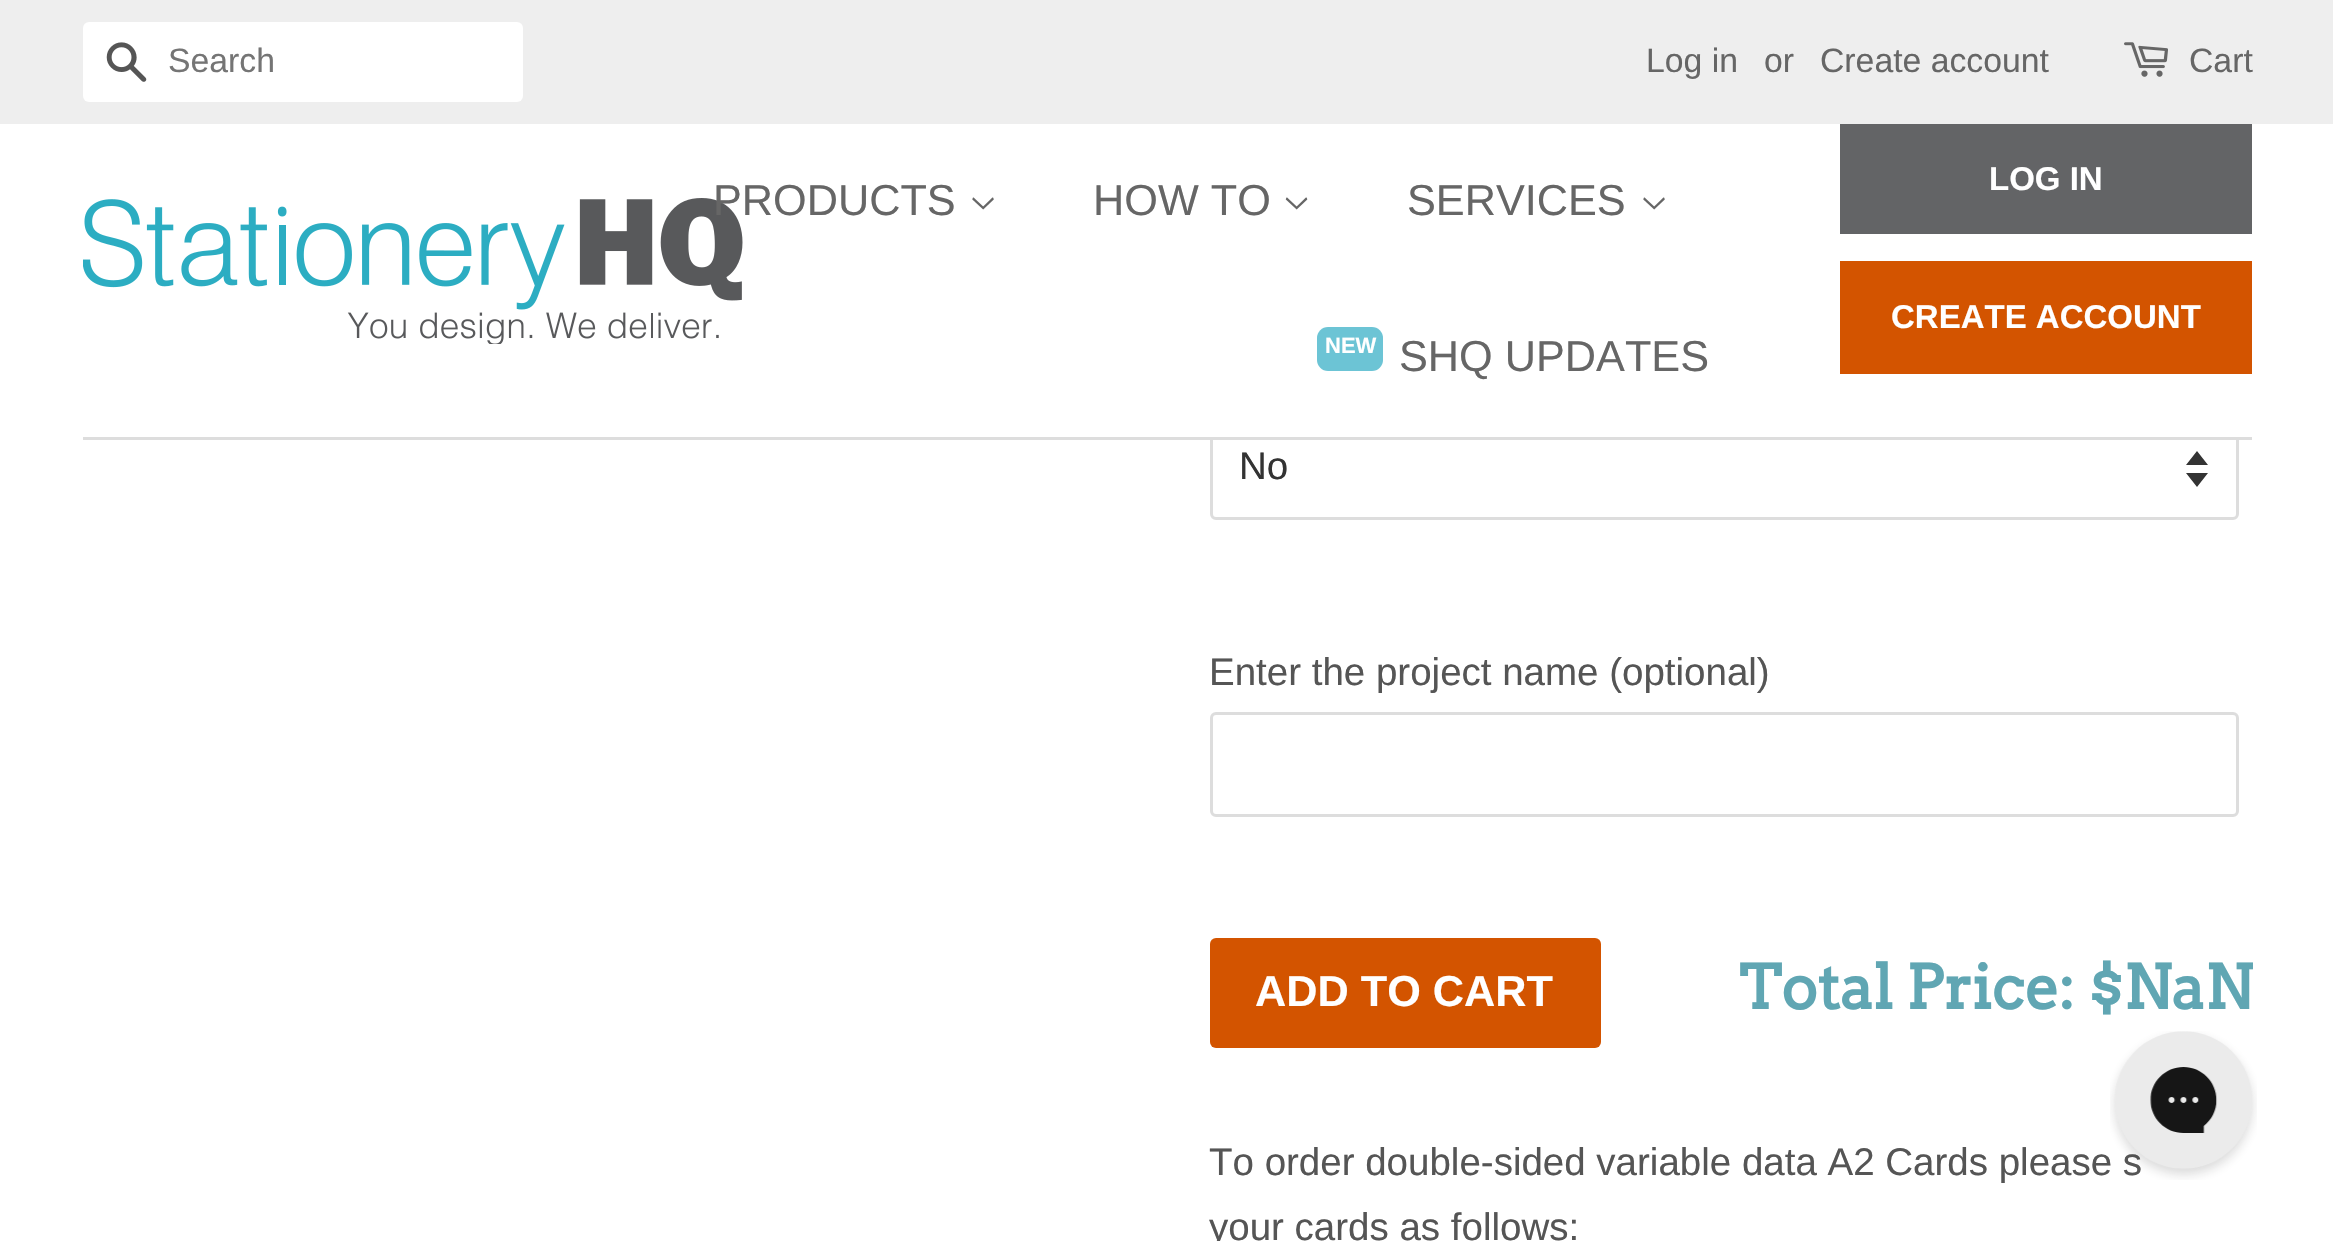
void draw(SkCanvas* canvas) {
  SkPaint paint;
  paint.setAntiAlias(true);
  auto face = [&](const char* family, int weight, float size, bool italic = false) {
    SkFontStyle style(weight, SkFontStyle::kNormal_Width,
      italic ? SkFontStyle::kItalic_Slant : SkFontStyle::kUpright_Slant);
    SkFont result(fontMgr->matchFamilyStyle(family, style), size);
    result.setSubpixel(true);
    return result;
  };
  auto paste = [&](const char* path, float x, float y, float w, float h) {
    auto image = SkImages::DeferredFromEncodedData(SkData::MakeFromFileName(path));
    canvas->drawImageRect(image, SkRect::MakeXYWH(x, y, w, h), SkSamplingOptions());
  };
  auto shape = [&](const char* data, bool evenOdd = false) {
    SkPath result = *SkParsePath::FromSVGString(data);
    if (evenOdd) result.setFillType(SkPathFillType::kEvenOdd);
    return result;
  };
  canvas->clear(0xffffffff);
  paint.setColor(0xffeeeeee);
  canvas->drawRect(SkRect::MakeXYWH(0, 0, 2333, 124), paint);
  paint.setColor(0xffffffff);
  canvas->drawRoundRect(SkRect::MakeXYWH(83, 22, 440, 80), 6, 6, paint);
  paste("img/1.png", 106, 42, 41, 40);
  paste("img/2.png", 2124, 42, 44, 35);
  paint.setColor(0xff333333);
  canvas->drawPath(shape("M2186 473L2197 487L2208 473ZM2197 451L2186 465H2208Z"), paint);
  paint.setStroke(true);
  paint.setStrokeWidth(3);
  paint.setColor(0xffdddddd);
  canvas->drawRoundRect(SkRect::MakeXYWH(1211.5f, 416.5f, 1026, 102), 4.5f, 4.5f, paint);
  paint.setStroke(false);
  paint.setColor(0xffffffff);
  canvas->drawRect(SkRect::MakeXYWH(1210, 415, 1029, 25), paint);
  paint.setColor(0xffdddddd);
  canvas->drawRect(SkRect::MakeXYWH(83, 437, 2169, 3), paint);
  paste("img/3.png", 83, 198, 660, 146);
  paste("img/4.png", 972, 197, 22, 13);
  paste("img/5.png", 1285, 197, 23, 13);
  paste("img/4.png", 1643, 197, 22, 13);
  paint.setColor(0xff6cc4d5);
  canvas->drawRoundRect(SkRect::MakeXYWH(1317, 327, 66, 44), 11, 11, paint);
  paint.setColor(0xff636466);
  canvas->drawRect(SkRect::MakeXYWH(1840, 124, 412, 110), paint);
  paint.setColor(0xffd35400);
  canvas->drawRect(SkRect::MakeXYWH(1840, 261, 412, 113), paint);
  paint.setStroke(true);
  paint.setColor(0xffdddddd);
  canvas->drawRoundRect(SkRect::MakeXYWH(1211.5f, 713.5f, 1026, 102), 4.5f, 4.5f, paint);
  paint.setStroke(false);
  paint.setColor(0xffd35400);
  canvas->drawRoundRect(SkRect::MakeXYWH(1210, 938, 391, 110), 6, 6, paint);
  auto f0 = face("Liberation Sans", 400, 33.75f);
  paint.setColor(0xff757575);
  canvas->drawString("Search", 168, 72, f0, paint);
  paint.setColor(0xff666666);
  {
    const struct { const char* s; float x, y; } items[] = {
      {"Log in", 1646, 72},
      {"or", 1764, 72},
      {"Create account", 1820, 72},
      {"Cart", 2189, 72},
    };
    for (auto [s, x, y] : items) {
      canvas->drawString(s, x, y, f0, paint);
    }
  }
  auto f1 = face("Liberation Sans", 400, 43.25f);
  {
    const struct { const char* s; float x, y; } items[] = {
      {"PRODUCTS", 713, 215},
      {"HOW TO", 1093, 215},
      {"SERVICES", 1407, 215},
    };
    for (auto [s, x, y] : items) {
      canvas->drawString(s, x, y, f1, paint);
    }
  }
  auto f2 = face("Liberation Sans", 700, 22);
  paint.setColor(0xffffffff);
  canvas->drawString("NEW", 1325, 353, f2, paint);
  paint.setColor(0xff666666);
  canvas->drawString("SHQ UPDATES", 1399, 371, f1, paint);
  auto f3 = face("Liberation Sans", 700, 33);
  paint.setColor(0xffffffff);
  canvas->drawString("LOG IN", 1989, 190, f3, paint);
  canvas->drawString("CREATE ACCOUNT", 1891, 328, f3, paint);
  auto f4 = face("Liberation Sans", 400, 38.5f);
  paint.setColor(0xff333333);
  canvas->drawString("No", 1239, 479, f4, paint);
  paint.setColor(0xff555555);
  canvas->drawString("Enter the project name (optional)", 1209, 685, f4, paint);
  auto f5 = face("Liberation Sans", 700, 43.25f);
  paint.setColor(0xffffffff);
  canvas->drawString("ADD TO CART", 1255, 1006, f5, paint);
  auto f6 = face("Arvo", 700, 60.5f);
  paint.setColor(0xff60a6b3);
  canvas->drawString("Total Price: $NaN", 1739, 1009, f6, paint);
  paint.setColor(0xff555555);
  canvas->drawString("To order double-sided variable data A2 Cards please s", 1209, 1175, f4, paint);
  canvas->drawString("your cards as follows:", 1209, 1240, f4, paint);
  paste("img/6.png", 2110, 1031, 147, 149);
}
